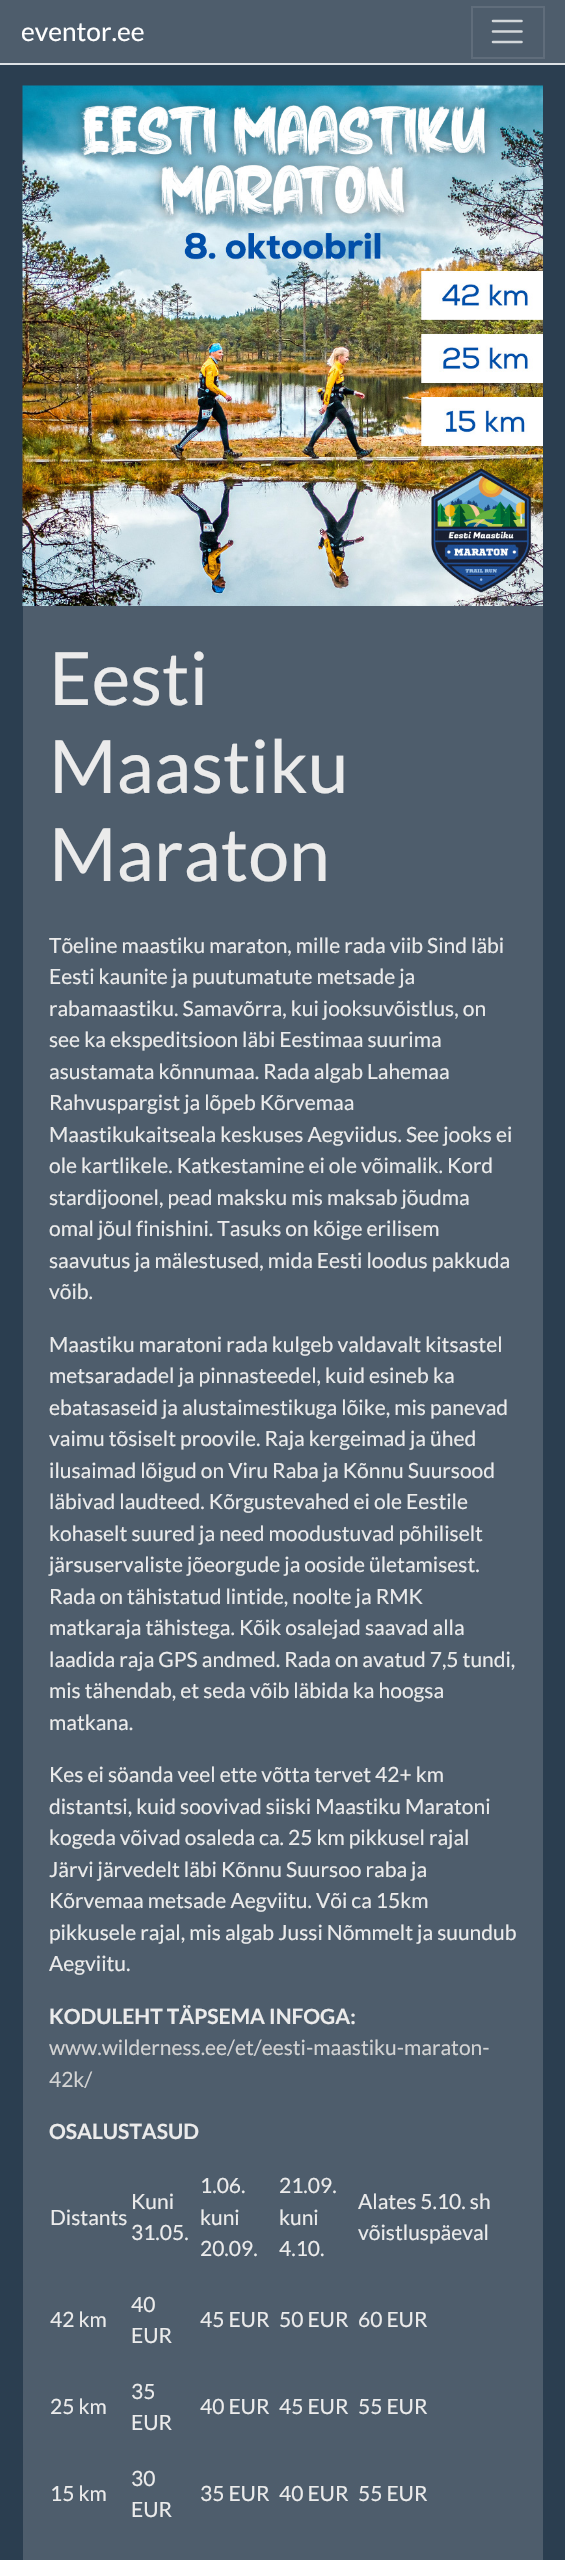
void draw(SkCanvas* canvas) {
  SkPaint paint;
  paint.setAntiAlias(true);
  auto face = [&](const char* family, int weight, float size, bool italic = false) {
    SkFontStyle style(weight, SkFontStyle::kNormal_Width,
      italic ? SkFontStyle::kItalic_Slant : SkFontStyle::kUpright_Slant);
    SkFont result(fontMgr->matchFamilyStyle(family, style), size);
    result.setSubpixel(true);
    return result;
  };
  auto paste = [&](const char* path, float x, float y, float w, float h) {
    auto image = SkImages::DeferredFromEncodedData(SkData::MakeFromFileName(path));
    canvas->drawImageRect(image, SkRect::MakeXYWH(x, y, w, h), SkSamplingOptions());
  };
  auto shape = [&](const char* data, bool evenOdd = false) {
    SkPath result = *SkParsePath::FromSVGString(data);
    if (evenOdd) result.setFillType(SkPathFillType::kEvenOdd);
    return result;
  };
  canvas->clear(0xff2b3e50);
  paint.setColor(0xff4e5d6c);
  canvas->drawRect(SkRect::MakeXYWH(0, 0, 565, 63), paint);
  paint.setColor(0xffdee2e6);
  canvas->drawRect(SkRect::MakeXYWH(0, 63, 565, 2), paint);
  paint.setStroke(true);
  paint.setStrokeWidth(2);
  paint.setColor(0xff606d7b);
  canvas->drawRect(SkRect::MakeXYWH(472, 7, 72, 51), paint);
  paint.setStrokeWidth(2.6f);
  paint.setStrokeCap(SkPaint::kRound_Cap);
  paint.setColor(0xffd3d7da);
  canvas->drawPath(shape("M493 21H521.5M493 31.5H521.5M493 42H521.5"), paint);
  paint.setStroke(false);
  paint.setColor(0xff4e5d6c);
  canvas->drawRect(SkRect::MakeXYWH(23, 606, 520, 1954), paint);
  paste("img/1.png", 22, 85, 521, 521);
  auto f0 = face("Lato", 400, 26.25f);
  paint.setColor(0xffffffff);
  canvas->drawString("eventor.ee", 21, 41, f0, paint);
  auto f1 = face("Lato", 400, 73.5f);
  paint.setColor(0xffebebeb);
  {
    const struct { const char* s; float x, y; } items[] = {
      {"Eesti", 49, 705},
      {"Maastiku", 49, 793},
      {"Maraton", 49, 881},
    };
    for (auto [s, x, y] : items) {
      canvas->drawString(s, x, y, f1, paint);
    }
  }
  auto f2 = face("Lato", 400, 21);
  {
    const struct { const char* s; float x, y; } items[] = {
      {"Tõeline maastiku maraton, mille rada viib Sind läbi", 49, 953},
      {"Eesti kaunite ja puutumatute metsade ja", 49, 984},
      {"rabamaastiku. Samavõrra, kui jooksuvõistlus, on", 49, 1016},
      {"see ka ekspeditsioon läbi Eestimaa suurima", 49, 1047},
      {"asustamata kõnnumaa. Rada algab Lahemaa", 49, 1079},
      {"Rahvuspargist ja lõpeb Kõrvemaa", 49, 1110},
      {"Maastikukaitseala keskuses Aegviidus. See jooks ei", 49, 1142},
      {"ole kartlikele. Katkestamine ei ole võimalik. Kord", 49, 1173},
      {"stardijoonel, pead maksku mis maksab jõudma", 49, 1205},
      {"omal jõul finishini. Tasuks on kõige erilisem", 49, 1236},
      {"saavutus ja mälestused, mida Eesti loodus pakkuda", 49, 1268},
      {"võib.", 49, 1299},
      {"Maastiku maratoni rada kulgeb valdavalt kitsastel", 49, 1352},
      {"metsaradadel ja pinnasteedel, kuid esineb ka", 49, 1383},
      {"ebatasaseid ja alustaimestikuga lõike, mis panevad", 49, 1415},
      {"vaimu tõsiselt proovile. Raja kergeimad ja ühed", 49, 1446},
      {"ilusaimad lõigud on Viru Raba ja Kõnnu Suursood", 49, 1478},
      {"läbivad laudteed. Kõrgustevahed ei ole Eestile", 49, 1509},
      {"kohaselt suured ja need moodustuvad põhiliselt", 49, 1541},
      {"järsuservaliste jõeorgude ja ooside ületamisest.", 49, 1572},
      {"Rada on tähistatud lintide, noolte ja RMK", 49, 1604},
      {"matkaraja tähistega. Kõik osalejad saavad alla", 49, 1635},
      {"laadida raja GPS andmed. Rada on avatud 7,5 tundi,", 49, 1667},
      {"mis tähendab, et seda võib läbida ka hoogsa", 49, 1698},
      {"matkana.", 49, 1730},
      {"Kes ei söanda veel ette võtta tervet 42+ km", 49, 1782},
      {"distantsi, kuid soovivad siiski Maastiku Maratoni", 49, 1814},
      {"kogeda võivad osaleda ca. 25 km pikkusel rajal", 49, 1845},
      {"Järvi järvedelt läbi Kõnnu Suursoo raba ja", 49, 1877},
      {"Kõrvemaa metsade Aegviitu. Või ca 15km", 49, 1908},
      {"pikkusele rajal, mis algab Jussi Nõmmelt ja suundub", 49, 1940},
      {"Aegviitu.", 49, 1971},
    };
    for (auto [s, x, y] : items) {
      canvas->drawString(s, x, y, f2, paint);
    }
  }
  auto f3 = face("Lato", 700, 21);
  canvas->drawString("KODULEHT TÄPSEMA INFOGA:", 49, 2024, f3, paint);
  paint.setColor(0xffd3d3d3);
  canvas->drawString("www.wilderness.ee/et/eesti-maastiku-maraton-", 49, 2055, f2, paint);
  canvas->drawString("42k/", 49, 2087, f2, paint);
  paint.setColor(0xffebebeb);
  canvas->drawString("OSALUSTASUD", 49, 2139, f3, paint);
  {
    const struct { const char* s; float x, y; } items[] = {
      {"Distants", 50, 2225},
      {"Kuni", 131, 2209},
      {"31.05.", 131, 2240},
      {"1.06.", 200, 2193},
      {"kuni", 200, 2225},
      {"20.09.", 200, 2256},
      {"21.09.", 279, 2193},
      {"kuni", 279, 2225},
      {"4.10.", 279, 2256},
      {"Alates 5.10. sh", 358, 2209},
      {"võistluspäeval", 358, 2240},
      {"42 km", 50, 2327},
      {"40", 131, 2312},
      {"EUR", 131, 2343},
      {"45 EUR", 200, 2327},
      {"50 EUR", 279, 2327},
      {"60 EUR", 358, 2327},
      {"25 km", 50, 2414},
      {"35", 131, 2399},
      {"EUR", 131, 2430},
      {"40 EUR", 200, 2414},
      {"45 EUR", 279, 2414},
      {"55 EUR", 358, 2414},
      {"15 km", 50, 2501},
      {"30", 131, 2486},
      {"EUR", 131, 2517},
      {"35 EUR", 200, 2501},
      {"40 EUR", 279, 2501},
      {"55 EUR", 358, 2501},
    };
    for (auto [s, x, y] : items) {
      canvas->drawString(s, x, y, f2, paint);
    }
  }
}
